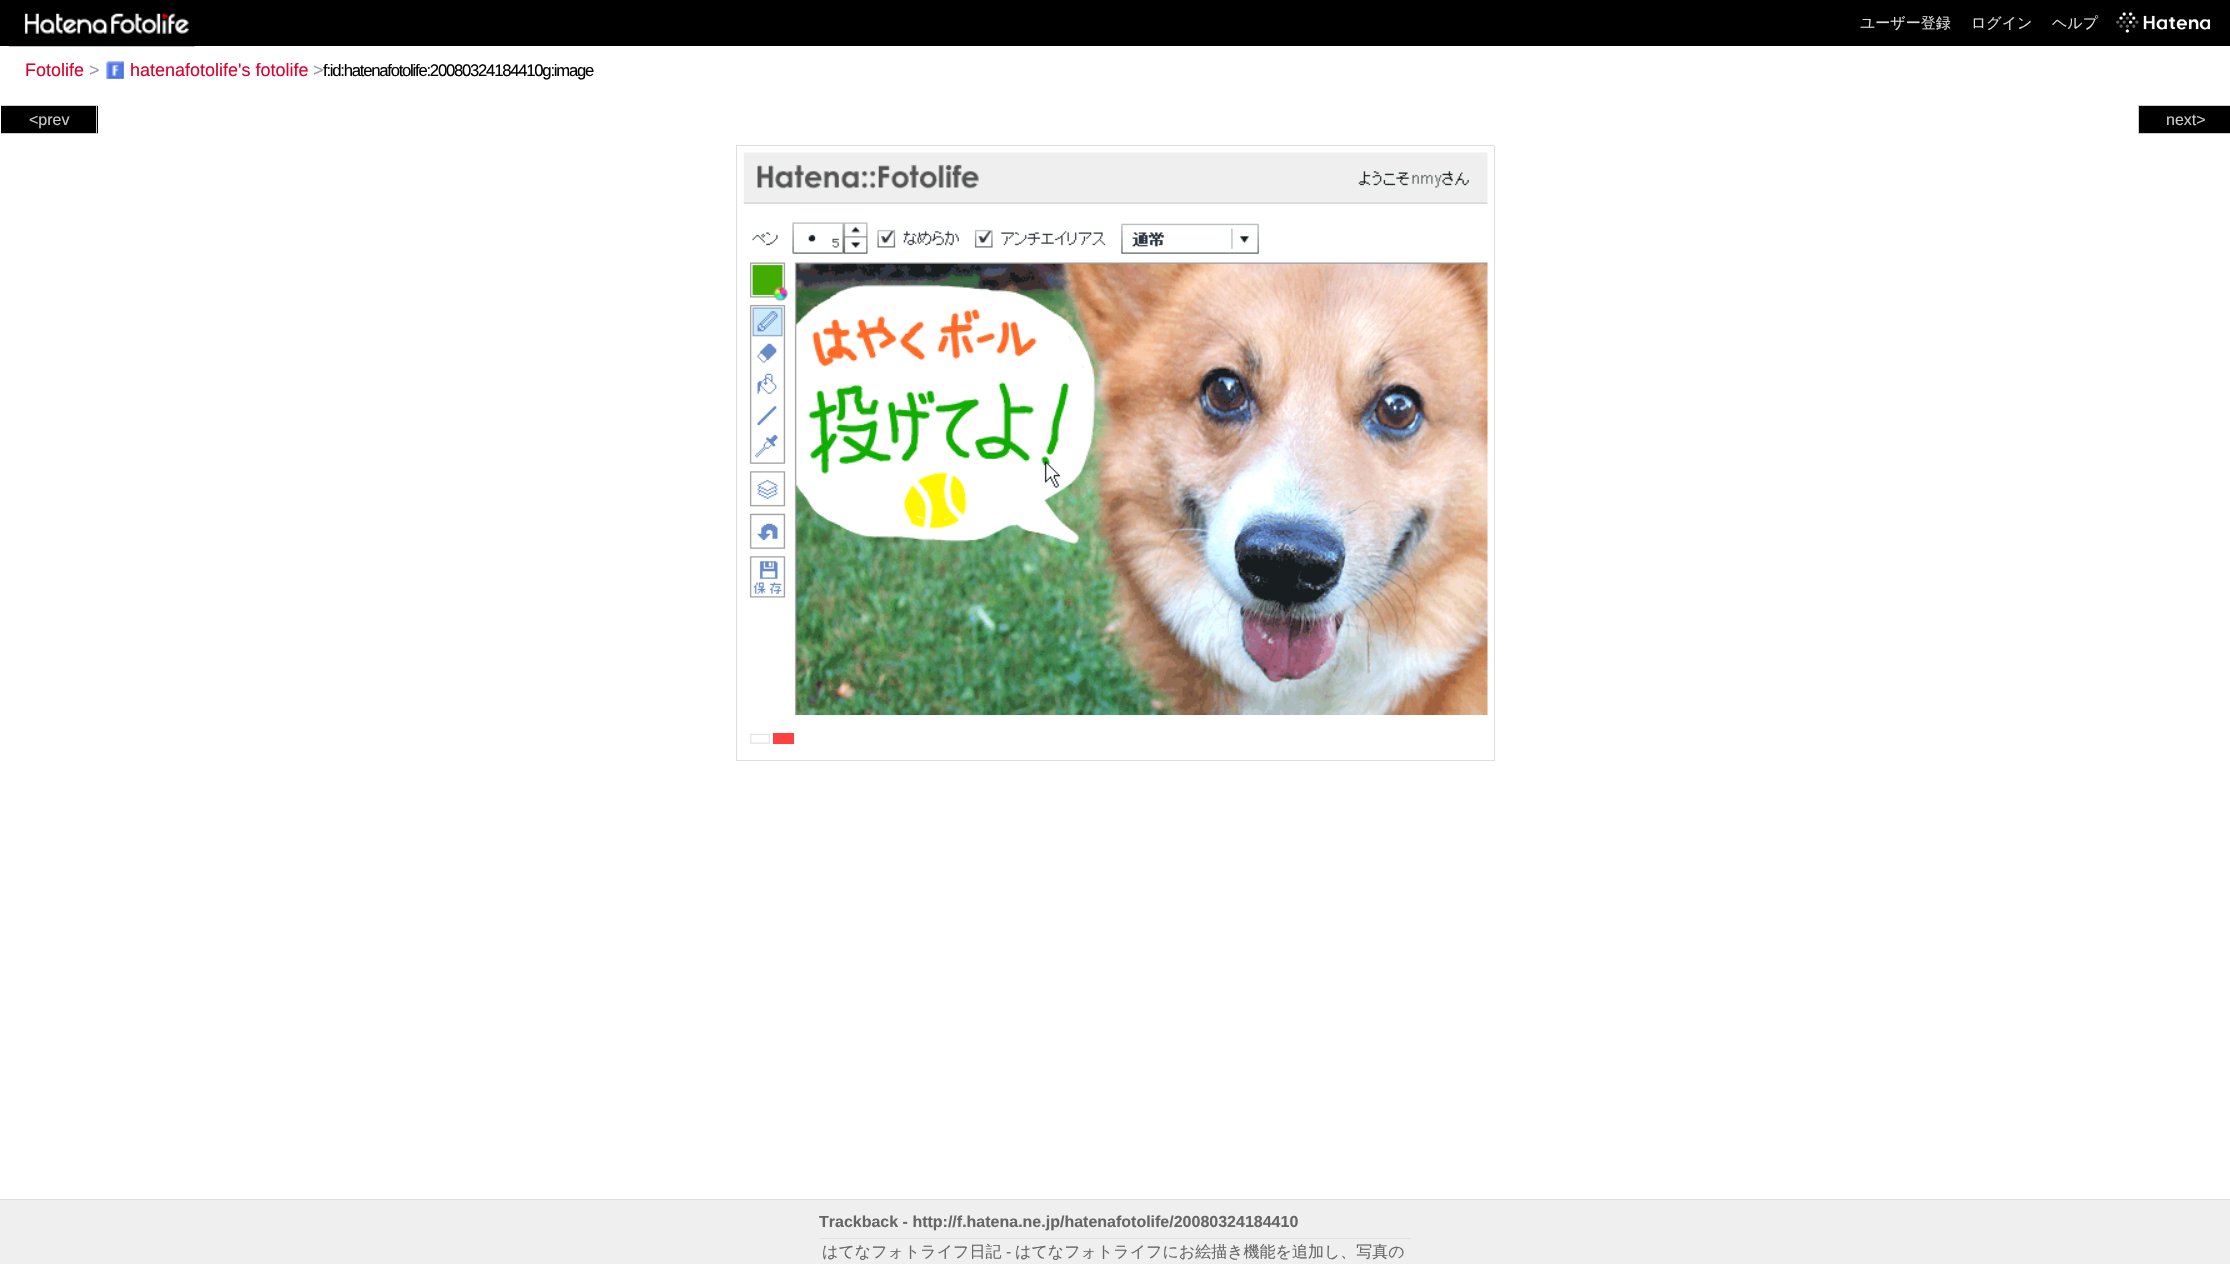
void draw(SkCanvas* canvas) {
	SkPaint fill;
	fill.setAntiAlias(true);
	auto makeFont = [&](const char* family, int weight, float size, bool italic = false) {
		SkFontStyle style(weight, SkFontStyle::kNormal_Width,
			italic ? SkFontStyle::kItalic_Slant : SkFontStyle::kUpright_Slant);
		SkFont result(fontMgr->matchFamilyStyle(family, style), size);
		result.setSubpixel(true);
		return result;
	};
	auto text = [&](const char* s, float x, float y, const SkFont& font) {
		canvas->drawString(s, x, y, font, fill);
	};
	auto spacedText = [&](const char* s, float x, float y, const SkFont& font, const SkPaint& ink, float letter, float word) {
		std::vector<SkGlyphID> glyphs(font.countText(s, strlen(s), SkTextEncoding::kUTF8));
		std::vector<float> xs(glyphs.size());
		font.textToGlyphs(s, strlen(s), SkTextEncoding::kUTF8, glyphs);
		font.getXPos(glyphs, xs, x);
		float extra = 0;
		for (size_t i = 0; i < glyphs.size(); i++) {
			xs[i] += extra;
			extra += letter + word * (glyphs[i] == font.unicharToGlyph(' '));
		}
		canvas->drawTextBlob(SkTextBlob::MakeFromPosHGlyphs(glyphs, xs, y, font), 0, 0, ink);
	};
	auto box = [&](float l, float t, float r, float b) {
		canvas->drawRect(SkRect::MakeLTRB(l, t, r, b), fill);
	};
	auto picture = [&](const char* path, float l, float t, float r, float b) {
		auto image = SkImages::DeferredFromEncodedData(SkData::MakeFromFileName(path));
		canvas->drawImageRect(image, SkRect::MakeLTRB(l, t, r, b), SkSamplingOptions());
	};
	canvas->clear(0xFFEFEFEF);
	fill.setColor(0xFF000000);
	box(0, 0, 2230, 46);
	fill.setColor(0xFFFFFFFF);
	box(0, 46, 2230, 1199);
	picture("image0.png", 8, 13, 112, 47);
	picture("image1.png", 111, 13, 195, 47);
	picture("image2.png", 2116, 12, 2210, 33);
	picture("image3.png", 106, 61, 124, 79);
	fill.setColor(0xFFDEDEDE);
	box(0, 1199, 2230, 1200);
	fill.setColor(0xFF000000);
	box(1, 106, 98, 133);
	fill.setColor(0xFFCCCCCC);
	box(1, 105, 98, 106);
	box(96, 105, 97, 134);
	box(1, 133, 98, 134);
	fill.setColor(0xFF000000);
	box(2139, 106, 2230, 133);
	fill.setColor(0xFFCCCCCC);
	box(2138, 105, 2230, 106);
	box(2138, 133, 2230, 134);
	box(2138, 105, 2139, 134);
	fill.setStyle(SkPaint::kStroke_Style);
	fill.setStrokeWidth(1);
	fill.setColor(0xFFDEDEDE);
	canvas->drawRect(SkRect::MakeLTRB(736.5f, 145.5f, 1494.5f, 760.5f), fill);
	picture("image4.png", 743, 152, 1488, 715);
	picture("image5.png", 750, 733, 770, 744);
	fill.setStyle(SkPaint::kFill_Style);
	fill.setColor(0xFFFF4040);
	box(773, 733, 794, 744);
	fill.setColor(0xFFE1E1E1);
	box(820, 1238, 1411, 1239);
	auto font1 = makeFont("WenQuanYi Zen Hei", 500, 15);
	fill.setColor(0xFFDDDDDD);
	text("ユーザー登録", 1860, 28, font1);
	text("ログイン", 1971, 28, font1);
	text("ヘルプ", 2052, 28, font1);
	auto font2 = makeFont("Liberation Sans", 400, 18);
	fill.setColor(0xFFDE002F);
	text("Fotolife", 25, 76, font2);
	fill.setColor(0xFF999999);
	text(">", 89, 76, font2);
	fill.setColor(0xFFDE002F);
	text("hatenafotolife's fotolife", 130, 76, font2);
	fill.setColor(0xFF999999);
	text(">", 313, 76, font2);
	auto font3 = makeFont("Liberation Sans", 400, 16.7f);
	fill.setColor(0xFF000000);
	spacedText("f:id:hatenafotolife:20080324184410g:image", 323, 76, font3, fill, -1.25f, 0);
	auto font4 = makeFont("Liberation Sans", 400, 16);
	fill.setColor(0xFFCCCCCC);
	text("<prev", 29, 125, font4);
	text("next>", 2166, 125, font4);
	auto font5 = makeFont("Liberation Sans", 700, 16);
	fill.setColor(0xFF666666);
	text("Trackback - http://f.hatena.ne.jp/hatenafotolife/20080324184410", 819, 1227, font5);
	auto font6 = makeFont("WenQuanYi Zen Hei", 500, 16);
	text("はてなフォトライフ日記", 822, 1257, font6);
	text("-", 1006, 1257, font4);
	text("はてなフォトライフにお絵描き機能を追加し、写真の", 1015, 1257, font6);
}
